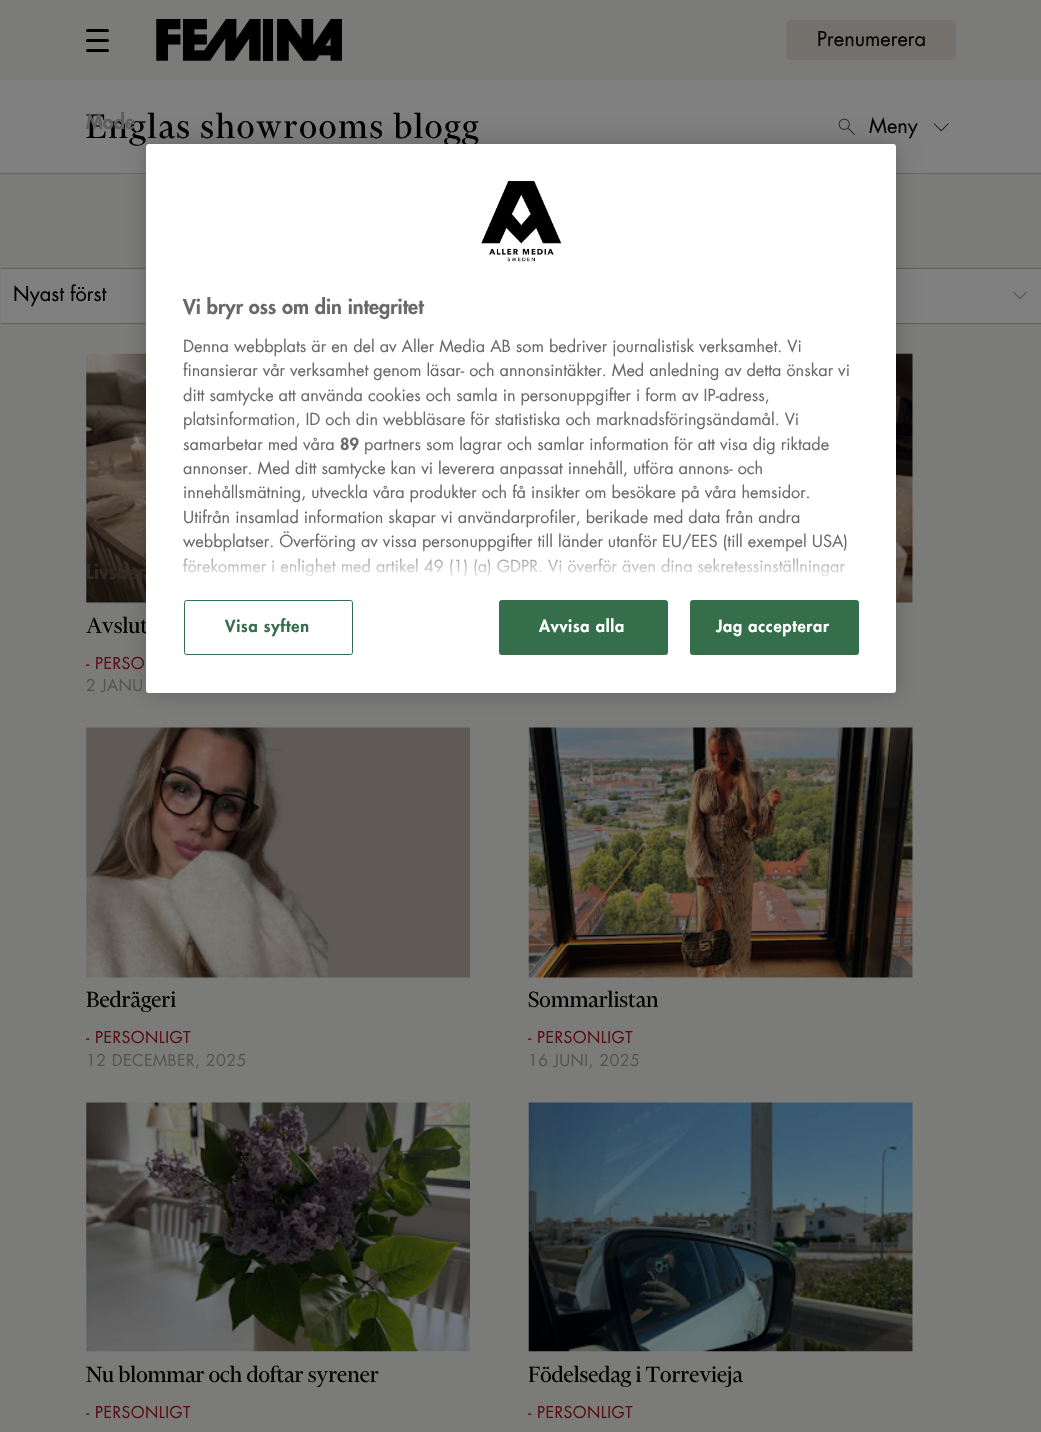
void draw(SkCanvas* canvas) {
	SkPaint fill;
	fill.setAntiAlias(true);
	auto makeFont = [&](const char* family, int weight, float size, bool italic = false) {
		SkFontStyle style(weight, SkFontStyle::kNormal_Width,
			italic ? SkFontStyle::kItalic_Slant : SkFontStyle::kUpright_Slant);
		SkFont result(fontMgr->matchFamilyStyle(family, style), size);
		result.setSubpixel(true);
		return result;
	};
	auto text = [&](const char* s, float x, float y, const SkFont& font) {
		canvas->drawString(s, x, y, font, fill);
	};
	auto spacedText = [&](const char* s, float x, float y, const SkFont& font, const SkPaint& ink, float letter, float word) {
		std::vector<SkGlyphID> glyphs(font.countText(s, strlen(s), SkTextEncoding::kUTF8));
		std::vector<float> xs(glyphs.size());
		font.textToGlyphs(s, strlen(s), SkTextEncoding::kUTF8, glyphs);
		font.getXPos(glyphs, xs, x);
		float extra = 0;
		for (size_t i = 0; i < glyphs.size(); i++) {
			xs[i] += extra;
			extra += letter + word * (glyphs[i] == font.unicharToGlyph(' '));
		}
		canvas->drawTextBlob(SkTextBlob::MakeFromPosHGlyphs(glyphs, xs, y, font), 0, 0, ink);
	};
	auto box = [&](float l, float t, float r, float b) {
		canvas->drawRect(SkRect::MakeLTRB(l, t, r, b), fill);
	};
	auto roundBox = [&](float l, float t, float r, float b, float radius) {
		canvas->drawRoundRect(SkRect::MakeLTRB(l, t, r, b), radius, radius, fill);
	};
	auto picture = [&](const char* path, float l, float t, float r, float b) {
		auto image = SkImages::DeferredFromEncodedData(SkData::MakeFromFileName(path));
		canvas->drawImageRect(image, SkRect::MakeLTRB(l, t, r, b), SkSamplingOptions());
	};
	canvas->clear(0xFF7B7B7A);
	fill.setColor(0xFF000000);
	roundBox(86, 29, 109, 32, 1.5f);
	roundBox(86, 39, 109, 42, 1.5f);
	roundBox(86, 49, 109, 52, 1.5f);
	picture("image0.png", 156, 19, 342, 61);
	fill.setColor(0xFF74706C);
	roundBox(786, 20, 956, 60, 6);
	fill.setColor(0xFF808080);
	box(0, 80, 1041, 173);
	fill.setColor(0xFF666666);
	box(0, 173, 1041, 174);
	picture("image1.png", 838, 118, 855, 135);
	picture("image2.png", 933, 123, 949, 132);
	fill.setColor(0xFF808080);
	box(1, 269, 146, 323);
	fill.setColor(0xFF5F5F5F);
	box(1, 268, 146, 269);
	box(1, 323, 146, 324);
	fill.setColor(0xFF808080);
	box(896, 269, 1041, 323);
	fill.setColor(0xFF5F5F5F);
	box(896, 268, 1041, 269);
	box(896, 323, 1041, 324);
	fill.setColor(0xFF5D5D5D);
	canvas->drawPath(SkPathBuilder().moveTo(1019, 298.5f).lineTo(1026, 291.5f).lineTo(1027, 292.5f).lineTo(1020, 299.5f).close().detach(), fill);
	canvas->drawPath(SkPathBuilder().moveTo(1013, 292.5f).lineTo(1014, 291.5f).lineTo(1021, 298.5f).lineTo(1020, 299.5f).close().detach(), fill);
	picture("image3.png", 896, 353, 913, 603);
	picture("image4.png", 86, 353, 146, 603);
	picture("image5.png", 86, 727, 470, 978);
	picture("image6.png", 528, 727, 913, 978);
	picture("image7.png", 86, 1102, 470, 1352);
	picture("image8.png", 528, 1102, 913, 1352);
	fill.setColor(0x33000000);
	fill.setMaskFilter(SkMaskFilter::MakeBlur(kNormal_SkBlurStyle, 11));
	canvas->drawRoundRect(SkRect::MakeLTRB(146, 144, 896, 693), 3, 3, fill);
	fill.setMaskFilter(nullptr);
	auto font1 = makeFont("Futura", 400, 20);
	fill.setColor(0xFF000000);
	text("Prenumerera", 817, 46, font1);
	auto font2 = makeFont("Futura", 900, 20);
	fill.setColor(0xFF332820);
	text("Livsber", 86, 579, font2);
	auto font3 = makeFont("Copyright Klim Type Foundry", 400, 38.75f);
	fill.setColor(0xFF000000);
	spacedText("Englas showrooms blogg", 86, 138, font3, fill, 1.9f, 0);
	fill.setColor(0xFF5E5E5E);
	text("Mode", 86, 129, font2);
	fill.setColor(0xFF000000);
	text("Meny", 869, 133, font1);
	text("Nyast först", 13, 301, font1);
	auto font4 = makeFont("Copyright Klim Type Foundry", 400, 25);
	text("Avslut", 86, 633, font4);
	auto font5 = makeFont("Futura", 400, 16);
	fill.setColor(0xFF570D11);
	spacedText("- PERSO", 86, 669, font5, fill, 0.4f, 0);
	fill.setColor(0xFF545454);
	spacedText("2 JANU", 86, 691, font5, fill, 0.4f, 0);
	fill.setColor(0xFF000000);
	text("Bedrägeri", 86, 1007, font4);
	fill.setColor(0xFF570D11);
	spacedText("- PERSONLIGT", 86, 1043, font5, fill, 0.4f, 0);
	fill.setColor(0xFF545454);
	spacedText("12 DECEMBER, 2025", 86, 1066, font5, fill, 0.4f, 0);
	fill.setColor(0xFF000000);
	text("Sommarlistan", 528, 1007, font4);
	fill.setColor(0xFF570D11);
	spacedText("- PERSONLIGT", 528, 1043, font5, fill, 0.4f, 0);
	fill.setColor(0xFF545454);
	spacedText("16 JUNI, 2025", 528, 1066, font5, fill, 0.4f, 0);
	fill.setColor(0xFF000000);
	text("Nu blommar och doftar syrener", 86, 1382, font4);
	fill.setColor(0xFF570D11);
	spacedText("- PERSONLIGT", 86, 1418, font5, fill, 0.4f, 0);
	canvas->save();
	canvas->clipRect(SkRect::MakeLTRB(529, 1359, 743, 1389));
	fill.setColor(0xFF000000);
	text("Födelsedag i Torrevieja", 528, 1382, font4);
	canvas->restore();
	fill.setColor(0xFF570D11);
	spacedText("- PERSONLIGT", 528, 1418, font5, fill, 0.4f, 0);
	fill.setColor(0xFFFFFFFF);
	roundBox(146, 144, 896, 693, 3);
	picture("image9.png", 481, 181, 562, 262);
	fill.setColor(0xFF696969);
	text("Vi bryr oss om din integritet", 183, 314, font2);
	auto font6 = makeFont("Futura", 400, 16.25f);
	text("Denna webbplats är en del av Aller Media AB som bedriver journalistisk verksamhet. Vi", 183, 352, font6);
	text("finansierar vår verksamhet genom läsar- och annonsintäkter. Med anledning av detta önskar vi", 183, 376, font6);
	text("ditt samtycke att använda cookies och samla in personuppgifter i form av IP-adress,", 183, 401, font6);
	text("platsinformation, ID och din webbläsare för statistiska och marknadsföringsändamål. Vi", 183, 425, font6);
	text("samarbetar med våra", 183, 450, font6);
	auto font7 = makeFont("Futura", 900, 16.25f);
	text("89", 340, 450, font7);
	text("partners som lagrar och samlar information för att visa dig riktade", 364, 450, font6);
	text("annonser. Med ditt samtycke kan vi leverera anpassat innehåll, utföra annons- och", 183, 474, font6);
	text("innehållsmätning, utveckla våra produkter och få insikter om besökare på våra hemsidor.", 183, 498, font6);
	text("Utifrån insamlad information skapar vi användarprofiler, berikade med data från andra", 183, 523, font6);
	text("webbplatser. Överföring av vissa personuppgifter till länder utanför EU/EES (till exempel USA)", 183, 547, font6);
	text("förekommer i enlighet med artikel 49 (1) (a) GDPR. Vi överför även dina sekretessinställningar", 183, 572, font6);
	{
		const SkColor colors[] = {0x00FFFFFF, 0xFFFFFFFF};
		const float stops[] = {0, 1};
		const SkPoint ends[] = {{546, 545}, {546, 582}};
		fill.setShader(SkGradientShader::MakeLinear(ends, colors, stops, 2, SkTileMode::kClamp));
		fill.setAlpha(255);
	}
	box(184, 546, 846, 577);
	fill.setStyle(SkPaint::kStroke_Style);
	fill.setStrokeWidth(1);
	fill.setShader(nullptr);
	fill.setColor(0xFF346E4A);
	canvas->drawRoundRect(SkRect::MakeLTRB(184.5f, 600.5f, 352.5f, 654.5f), 2, 2, fill);
	fill.setStyle(SkPaint::kFill_Style);
	spacedText("Visa syften", 225, 632, font7, fill, 0.75f, 0);
	canvas->drawRoundRect(SkRect::MakeLTRB(499.5f, 600.5f, 667.5f, 654.5f), 2, 2, fill);
	fill.setStyle(SkPaint::kStroke_Style);
	canvas->drawRoundRect(SkRect::MakeLTRB(499.5f, 600.5f, 667.5f, 654.5f), 2, 2, fill);
	fill.setStyle(SkPaint::kFill_Style);
	fill.setColor(0xFFFFFFFF);
	spacedText("Avvisa alla", 539, 632, font7, fill, 0.75f, 0);
	fill.setColor(0xFF346E4A);
	canvas->drawRoundRect(SkRect::MakeLTRB(690.5f, 600.5f, 858.5f, 654.5f), 2, 2, fill);
	fill.setStyle(SkPaint::kStroke_Style);
	canvas->drawRoundRect(SkRect::MakeLTRB(690.5f, 600.5f, 858.5f, 654.5f), 2, 2, fill);
	fill.setStyle(SkPaint::kFill_Style);
	fill.setColor(0xFFFFFFFF);
	spacedText("Jag accepterar", 716, 632, font7, fill, 0.75f, 0);
}
